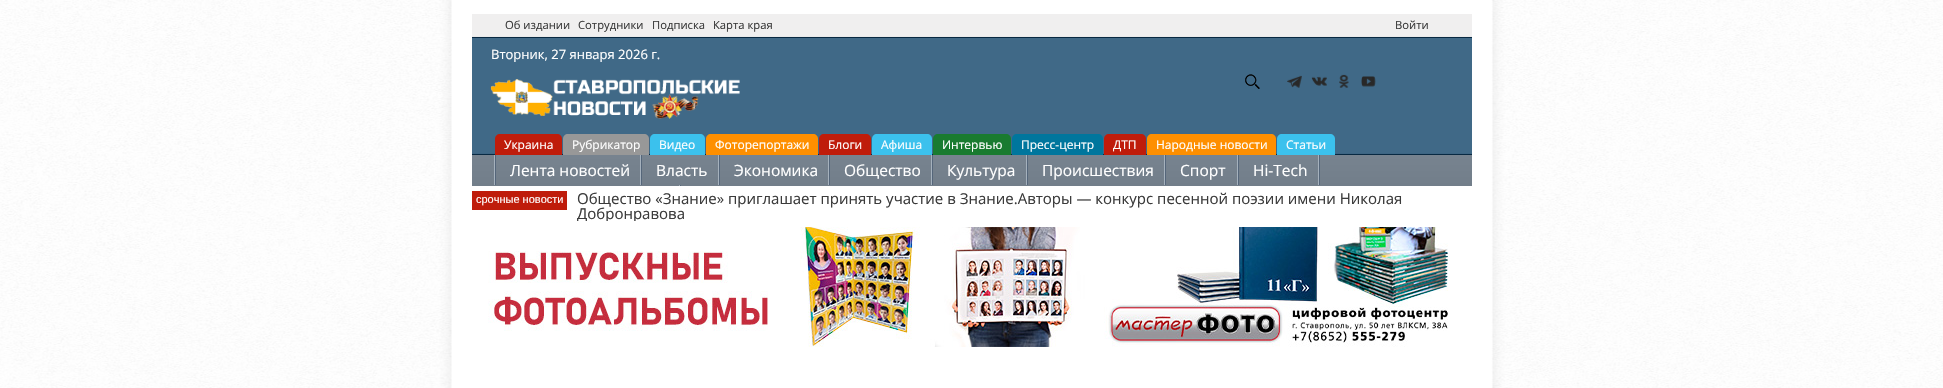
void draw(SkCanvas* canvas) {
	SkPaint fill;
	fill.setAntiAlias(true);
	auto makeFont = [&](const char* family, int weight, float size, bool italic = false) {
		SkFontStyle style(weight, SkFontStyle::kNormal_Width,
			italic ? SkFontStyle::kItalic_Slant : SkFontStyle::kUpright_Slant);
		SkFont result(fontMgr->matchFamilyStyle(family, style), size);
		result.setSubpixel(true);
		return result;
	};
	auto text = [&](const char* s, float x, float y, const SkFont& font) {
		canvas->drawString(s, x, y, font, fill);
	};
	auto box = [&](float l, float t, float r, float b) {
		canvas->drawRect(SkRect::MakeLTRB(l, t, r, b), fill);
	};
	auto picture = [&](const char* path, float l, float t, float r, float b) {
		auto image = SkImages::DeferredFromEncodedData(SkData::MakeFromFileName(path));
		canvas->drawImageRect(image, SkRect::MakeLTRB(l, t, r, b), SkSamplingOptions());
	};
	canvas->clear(0xFFFFFFFF);
	picture("image0.png", 0, 0, 1943, 388);
	fill.setColor(0xFFF0EFEF);
	box(472, 14, 1472, 36);
	fill.setColor(0xFFEAEAEA);
	box(472, 36, 1472, 37);
	fill.setColor(0xFF406987);
	box(472, 38, 1472, 153);
	fill.setColor(0xFF3D6583);
	box(472, 153, 1472, 154);
	fill.setColor(0xFF082942);
	box(472, 37, 1472, 38);
	box(472, 154, 1472, 155);
	picture("image1.png", 490, 79, 740, 119);
	picture("image2.png", 1245, 74, 1260, 89);
	picture("image3.png", 1287, 75, 1302, 88);
	picture("image4.png", 1311, 76, 1327, 86);
	picture("image5.png", 1339, 74, 1349, 88);
	picture("image6.png", 1361, 76, 1376, 87);
	fill.setColor(0xFFBF1C0B);
	canvas->drawPath(SkPathBuilder().moveTo(500, 134).lineTo(557, 134).cubicTo(560, 134, 562, 136, 562, 139).lineTo(562, 155).lineTo(495, 155).lineTo(495, 139).cubicTo(495, 136, 497, 134, 500, 134).close().detach(), fill);
	fill.setColor(0xFF989898);
	canvas->drawPath(SkPathBuilder().moveTo(568, 134).lineTo(644, 134).cubicTo(647, 134, 649, 136, 649, 139).lineTo(649, 155).lineTo(563, 155).lineTo(563, 139).cubicTo(563, 136, 565, 134, 568, 134).close().detach(), fill);
	fill.setColor(0xFF3BC1ED);
	canvas->drawPath(SkPathBuilder().moveTo(655, 134).lineTo(700, 134).cubicTo(703, 134, 705, 136, 705, 139).lineTo(705, 155).lineTo(650, 155).lineTo(650, 139).cubicTo(650, 136, 652, 134, 655, 134).close().detach(), fill);
	fill.setColor(0xFFFE8F00);
	canvas->drawPath(SkPathBuilder().moveTo(711, 134).lineTo(813, 134).cubicTo(816, 134, 818, 136, 818, 139).lineTo(818, 155).lineTo(706, 155).lineTo(706, 139).cubicTo(706, 136, 708, 134, 711, 134).close().detach(), fill);
	fill.setColor(0xFFBF1C0B);
	canvas->drawPath(SkPathBuilder().moveTo(824, 134).lineTo(866, 134).cubicTo(869, 134, 871, 136, 871, 139).lineTo(871, 155).lineTo(819, 155).lineTo(819, 139).cubicTo(819, 136, 821, 134, 824, 134).close().detach(), fill);
	fill.setColor(0xFF3BC1ED);
	canvas->drawPath(SkPathBuilder().moveTo(877, 134).lineTo(927, 134).cubicTo(930, 134, 932, 136, 932, 139).lineTo(932, 155).lineTo(872, 155).lineTo(872, 139).cubicTo(872, 136, 874, 134, 877, 134).close().detach(), fill);
	fill.setColor(0xFF197B30);
	canvas->drawPath(SkPathBuilder().moveTo(938, 134).lineTo(1006, 134).cubicTo(1009, 134, 1011, 136, 1011, 139).lineTo(1011, 155).lineTo(933, 155).lineTo(933, 139).cubicTo(933, 136, 935, 134, 938, 134).close().detach(), fill);
	fill.setColor(0xFF00769D);
	canvas->drawPath(SkPathBuilder().moveTo(1017, 134).lineTo(1098, 134).cubicTo(1101, 134, 1103, 136, 1103, 139).lineTo(1103, 155).lineTo(1012, 155).lineTo(1012, 139).cubicTo(1012, 136, 1014, 134, 1017, 134).close().detach(), fill);
	fill.setColor(0xFFBF1C0B);
	canvas->drawPath(SkPathBuilder().moveTo(1109, 134).lineTo(1141, 134).cubicTo(1144, 134, 1146, 136, 1146, 139).lineTo(1146, 155).lineTo(1104, 155).lineTo(1104, 139).cubicTo(1104, 136, 1106, 134, 1109, 134).close().detach(), fill);
	fill.setColor(0xFFFE8F00);
	canvas->drawPath(SkPathBuilder().moveTo(1152, 134).lineTo(1271, 134).cubicTo(1274, 134, 1276, 136, 1276, 139).lineTo(1276, 155).lineTo(1147, 155).lineTo(1147, 139).cubicTo(1147, 136, 1149, 134, 1152, 134).close().detach(), fill);
	fill.setColor(0xFF3BC1ED);
	canvas->drawPath(SkPathBuilder().moveTo(1282, 134).lineTo(1330, 134).cubicTo(1333, 134, 1335, 136, 1335, 139).lineTo(1335, 155).lineTo(1277, 155).lineTo(1277, 139).cubicTo(1277, 136, 1279, 134, 1282, 134).close().detach(), fill);
	{
		const SkColor colors[] = {0xFF77838F, 0xFF727E8A};
		const float stops[] = {0.05f, 1};
		const SkPoint ends[] = {{472, 155}, {472, 186}};
		fill.setShader(SkGradientShader::MakeLinear(ends, colors, stops, 2, SkTileMode::kClamp));
		fill.setAlpha(255);
	}
	box(472, 155, 1472, 186);
	fill.setShader(nullptr);
	fill.setColor(0xFF55667A);
	box(641, 155, 642, 185);
	fill.setColor(0xFFA5B1BD);
	box(494, 155, 495, 185);
	box(640, 155, 641, 185);
	fill.setColor(0xFF55667A);
	box(495, 155, 496, 185);
	box(719, 155, 720, 185);
	fill.setColor(0xFFA5B1BD);
	box(718, 155, 719, 185);
	fill.setColor(0xFF55667A);
	box(829, 155, 830, 185);
	fill.setColor(0xFFA5B1BD);
	box(828, 155, 829, 185);
	fill.setColor(0xFF55667A);
	box(932, 155, 933, 185);
	fill.setColor(0xFFA5B1BD);
	box(931, 155, 932, 185);
	fill.setColor(0xFF55667A);
	box(1027, 155, 1028, 185);
	fill.setColor(0xFFA5B1BD);
	box(1026, 155, 1027, 185);
	fill.setColor(0xFF55667A);
	box(1165, 155, 1166, 185);
	fill.setColor(0xFFA5B1BD);
	box(1164, 155, 1165, 185);
	fill.setColor(0xFF55667A);
	box(1238, 155, 1239, 185);
	fill.setColor(0xFFA5B1BD);
	box(1237, 155, 1238, 185);
	fill.setColor(0xFF55667A);
	box(1319, 155, 1320, 185);
	fill.setColor(0xFFA5B1BD);
	box(1318, 155, 1319, 185);
	fill.setColor(0xFF55667A);
	box(680, 185, 681, 186);
	fill.setColor(0xFFA5B1BD);
	box(679, 185, 680, 186);
	fill.setColor(0xFFBF1C0B);
	box(472, 191, 567, 210);
	picture("image7.png", 488, 227, 1448, 347);
	auto font1 = makeFont("Open Sans", 400, 11.25f);
	fill.setColor(0xFF3B3B3B);
	text("Об издании", 505, 29, font1);
	text("Сотрудники", 578, 29, font1);
	text("Подписка", 652, 29, font1);
	text("Карта края", 713, 29, font1);
	text("Войти", 1395, 29, font1);
	auto font2 = makeFont("Open Sans", 400, 13);
	fill.setColor(0xFFFFFFFF);
	text("Вторник, 27 января 2026 г.", 491, 59, font2);
	auto font3 = makeFont("Open Sans", 400, 12);
	text("Украина", 504, 149, font3);
	text("Рубрикатор", 572, 149, font3);
	text("Видео", 659, 149, font3);
	text("Фоторепортажи", 715, 149, font3);
	text("Блоги", 828, 149, font3);
	text("Афиша", 881, 149, font3);
	text("Интервью", 942, 149, font3);
	text("Пресс-центр", 1021, 149, font3);
	text("ДТП", 1113, 149, font3);
	text("Народные новости", 1156, 149, font3);
	text("Статьи", 1286, 149, font3);
	auto font4 = makeFont("Open Sans", 400, 15.5f);
	text("Лента новостей", 510, 176, font4);
	text("Власть", 656, 176, font4);
	text("Экономика", 734, 176, font4);
	text("Общество", 844, 176, font4);
	text("Культура", 947, 176, font4);
	text("Происшествия", 1042, 176, font4);
	text("Спорт", 1180, 176, font4);
	text("Hi-Tech", 1253, 176, font4);
	auto font5 = makeFont("Liberation Sans", 400, 11);
	text("cрочные новости", 476, 203, font5);
	auto font6 = makeFont("Open Sans", 400, 15);
	fill.setColor(0xFF3B3B3B);
	text("Общество «Знание» приглашает принять участие в Знание.Авторы — конкурс песенной поэзии имени Николая", 577, 204, font6);
	canvas->save();
	canvas->clipRect(SkRect::MakeLTRB(577, 191, 1427, 221));
	text("Добронравова", 577, 219, font6);
	canvas->restore();
}
